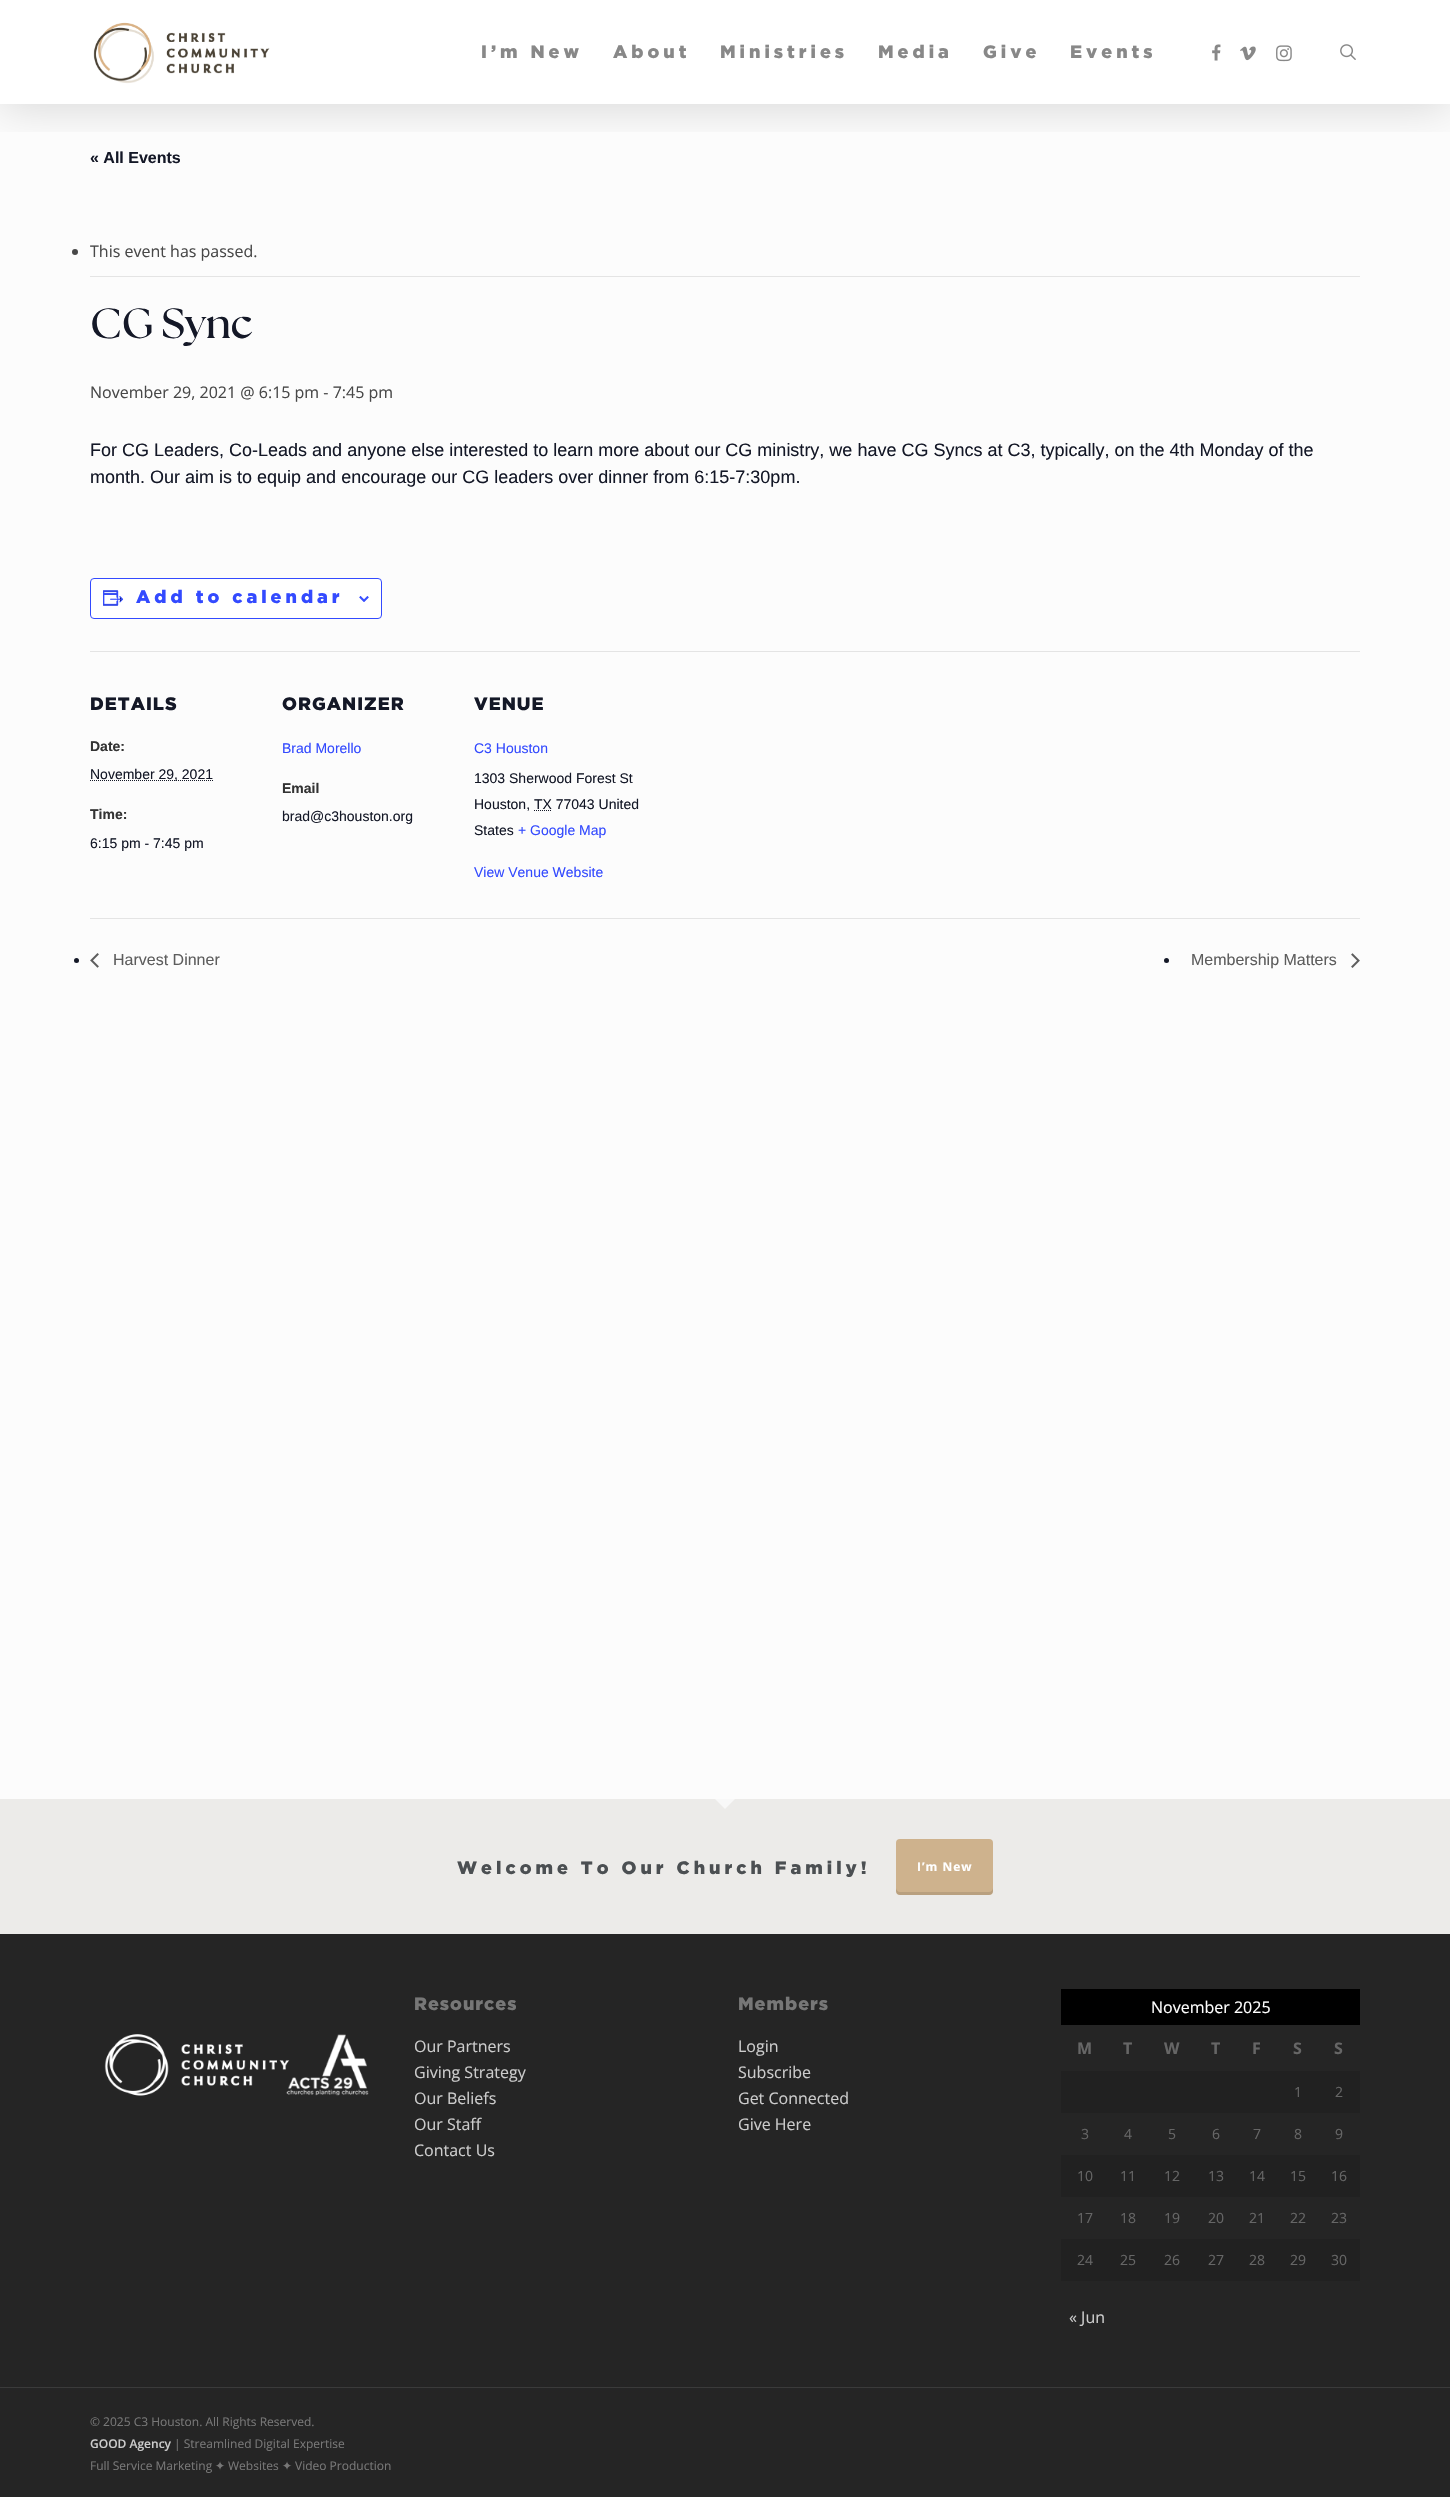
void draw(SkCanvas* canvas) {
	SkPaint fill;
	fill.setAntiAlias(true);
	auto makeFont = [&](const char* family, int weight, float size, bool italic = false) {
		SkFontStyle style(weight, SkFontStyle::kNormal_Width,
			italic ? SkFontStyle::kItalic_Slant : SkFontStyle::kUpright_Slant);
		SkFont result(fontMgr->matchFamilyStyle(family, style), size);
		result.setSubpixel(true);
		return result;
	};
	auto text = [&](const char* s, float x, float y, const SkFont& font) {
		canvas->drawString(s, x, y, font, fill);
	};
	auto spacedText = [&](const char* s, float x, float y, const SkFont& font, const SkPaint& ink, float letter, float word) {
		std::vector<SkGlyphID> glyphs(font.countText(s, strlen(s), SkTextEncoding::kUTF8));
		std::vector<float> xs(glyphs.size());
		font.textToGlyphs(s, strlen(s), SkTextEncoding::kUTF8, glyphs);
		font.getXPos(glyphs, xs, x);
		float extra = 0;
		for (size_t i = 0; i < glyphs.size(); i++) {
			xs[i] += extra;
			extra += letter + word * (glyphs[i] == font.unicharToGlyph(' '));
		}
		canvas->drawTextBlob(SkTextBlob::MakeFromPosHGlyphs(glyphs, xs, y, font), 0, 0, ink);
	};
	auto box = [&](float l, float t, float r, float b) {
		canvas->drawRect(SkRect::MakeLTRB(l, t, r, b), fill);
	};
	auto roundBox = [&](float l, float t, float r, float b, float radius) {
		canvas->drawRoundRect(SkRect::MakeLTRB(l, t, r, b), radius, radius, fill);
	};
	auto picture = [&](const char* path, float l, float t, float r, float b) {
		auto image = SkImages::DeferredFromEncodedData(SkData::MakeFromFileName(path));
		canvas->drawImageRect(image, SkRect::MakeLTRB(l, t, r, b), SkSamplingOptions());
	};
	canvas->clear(0xFFFCFCFC);
	fill.setColor(0xFFFFFFFF);
	box(0, 0, 1450, 104);
	canvas->save();
	canvas->clipRect(SkRect::MakeLTRB(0, 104, 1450, 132));
	fill.setColor(0x26000000);
	fill.setMaskFilter(SkMaskFilter::MakeBlur(kNormal_SkBlurStyle, 22.5f));
	canvas->drawRect(SkRect::MakeLTRB(0, 3, 1450, 107), fill);
	fill.setMaskFilter(nullptr);
	canvas->restore();
	picture("image0.png", 93, 22, 270, 84);
	picture("image1.png", 1212, 44, 1221, 61);
	picture("image2.png", 1240, 46, 1256, 61);
	picture("image3.png", 1276, 45, 1292, 62);
	picture("image4.png", 1340, 44, 1356, 60);
	fill.setColor(0xFFE4E4E4);
	box(90, 276, 1360, 277);
	fill.setColor(0xFF484848);
	canvas->drawCircle(75, 252, 3, fill);
	fill.setColor(0xFFFFFFFF);
	canvas->drawRoundRect(SkRect::MakeLTRB(90.5f, 578.5f, 381.5f, 618.5f), 3.5f, 3.5f, fill);
	fill.setStyle(SkPaint::kStroke_Style);
	fill.setStrokeWidth(1);
	fill.setColor(0xFF334AFF);
	canvas->drawRoundRect(SkRect::MakeLTRB(90.5f, 578.5f, 381.5f, 618.5f), 3.5f, 3.5f, fill);
	picture("image5.png", 103, 590, 124, 606);
	picture("image6.png", 359, 596, 369, 602);
	fill.setStyle(SkPaint::kFill_Style);
	fill.setColor(0xFFE4E4E4);
	box(90, 651, 1360, 652);
	fill.setStyle(SkPaint::kStroke_Style);
	fill.setColor(0xFF141827);
	fill.setPathEffect(SkDashPathEffect::Make({{1, 1}}, 0));
	canvas->drawPath(SkPathBuilder().moveTo(90, 780.5f).lineTo(213, 780.5f).detach(), fill);
	fill.setPathEffect(nullptr);
	fill.setPathEffect(SkDashPathEffect::Make({{1, 1}}, 0));
	canvas->drawPath(SkPathBuilder().moveTo(534, 810.5f).lineTo(552, 810.5f).detach(), fill);
	fill.setPathEffect(nullptr);
	fill.setStyle(SkPaint::kFill_Style);
	fill.setColor(0xFFE4E4E4);
	box(90, 918, 1360, 919);
	fill.setColor(0xFF141827);
	canvas->drawCircle(76.5f, 960.5f, 2.5f, fill);
	picture("image7.png", 90, 953, 99, 968);
	canvas->drawCircle(1166.5f, 960.5f, 2.5f, fill);
	picture("image8.png", 1351, 953, 1360, 968);
	fill.setColor(0xFF252525);
	box(0, 1934, 1450, 2497);
	fill.setColor(0xFFECEBE9);
	box(0, 1799, 1450, 1934);
	fill.setColor(0xFFF8F8F8);
	canvas->drawPath(SkPathBuilder().moveTo(715, 1799).lineTo(735, 1799).lineTo(725, 1809).close().detach(), fill);
	fill.setColor(0xFFCEB28D);
	roundBox(896, 1839, 993, 1895, 4);
	fill.setColor(0x1A000000);
	canvas->drawPath(SkPathBuilder().moveTo(896, 1888).lineTo(896, 1891).cubicTo(896, 1893, 898, 1895, 900, 1895).lineTo(989, 1895).cubicTo(991, 1895, 993, 1893, 993, 1891).lineTo(993, 1888).cubicTo(993, 1890, 991, 1892, 989, 1892).lineTo(900, 1892).cubicTo(898, 1892, 896, 1890, 896, 1888).close().detach(), fill);
	picture("image9.png", 104, 2034, 369, 2096);
	fill.setColor(0xFF000000);
	box(1061, 1989, 1360, 2025);
	fill.setColor(0xFF212121);
	box(1061, 2071, 1360, 2113);
	box(1061, 2155, 1360, 2197);
	box(1061, 2239, 1360, 2281);
	fill.setColor(0xFF3B3B3B);
	box(0, 2387, 1450, 2388);
	auto font1 = makeFont("Gotham", 900, 18);
	fill.setColor(0xFF888888);
	spacedText("I’m New", 481, 58, font1, fill, 4, 0);
	spacedText("About", 613, 58, font1, fill, 4, 0);
	spacedText("Ministries", 720, 58, font1, fill, 4, 0);
	spacedText("Media", 878, 58, font1, fill, 4, 0);
	spacedText("Give", 983, 58, font1, fill, 4, 0);
	spacedText("Events", 1070, 58, font1, fill, 4, 0);
	auto font2 = makeFont("Liberation Sans", 700, 16);
	fill.setColor(0xFF141827);
	text("« All Events", 90, 163, font2);
	auto font3 = makeFont("Open Sans", 400, 16);
	fill.setColor(0xFF484848);
	text("This event has passed.", 90, 257, font3);
	auto font4 = makeFont("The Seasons", 700, 42);
	fill.setColor(0xFF141827);
	text("CG Sync", 90, 338, font4);
	fill.setColor(0xFF484848);
	text("November 29, 2021 @ 6:15 pm - 7:45 pm", 90, 398, font3);
	auto font5 = makeFont("Liberation Sans", 400, 18);
	fill.setColor(0xFF141827);
	text("For CG Leaders, Co-Leads and anyone else interested to learn more about our CG ministry, we have CG Syncs at C3, typically, on the 4th Monday of the", 90, 456, font5);
	text("month. Our aim is to equip and encourage our CG leaders over dinner from 6:15-7:30pm.", 90, 483, font5);
	fill.setColor(0xFF334AFF);
	spacedText("Add to calendar", 136, 603, font1, fill, 4, 0);
	fill.setColor(0xFF141827);
	spacedText("DETAILS", 90, 710, font1, fill, 1, 0);
	auto font6 = makeFont("Liberation Sans", 700, 14);
	fill.setColor(0xFF333333);
	text("Date:", 90, 751, font6);
	auto font7 = makeFont("Liberation Sans", 400, 14);
	fill.setColor(0xFF141827);
	text("November 29, 2021", 90, 779, font7);
	fill.setColor(0xFF333333);
	text("Time:", 90, 819, font6);
	fill.setColor(0xFF141827);
	text("6:15 pm - 7:45 pm", 90, 848, font7);
	spacedText("ORGANIZER", 282, 710, font1, fill, 1, 0);
	fill.setColor(0xFF334AFF);
	text("Brad Morello", 282, 753, font7);
	fill.setColor(0xFF333333);
	text("Email", 282, 793, font6);
	fill.setColor(0xFF141827);
	text("brad@c3houston.org", 282, 821, font7);
	spacedText("VENUE", 474, 710, font1, fill, 1, 0);
	fill.setColor(0xFF334AFF);
	text("C3 Houston", 474, 753, font7);
	fill.setColor(0xFF141827);
	text("1303 Sherwood Forest St", 474, 783, font7);
	text("Houston, TX 77043 United", 474, 809, font7);
	text("States", 474, 835, font7);
	fill.setColor(0xFF334AFF);
	text("+ Google Map", 518, 835, font7);
	text("View Venue Website", 474, 877, font7);
	auto font8 = makeFont("Liberation Sans", 400, 16);
	fill.setColor(0xFF5D5D5D);
	text("Harvest Dinner", 113, 965, font8);
	text("Membership Matters", 1191, 965, font8);
	fill.setColor(0xFF4B4F52);
	spacedText("Welcome To Our Church Family!", 457, 1874, font1, fill, 4, 0);
	auto font9 = makeFont("Open Sans", 700, 12);
	fill.setColor(0xFFFFFFFF);
	spacedText("I’m New", 917, 1871, font9, fill, 1, 0);
	fill.setColor(0xFF777777);
	spacedText("Resources", 414, 2010, font1, fill, 1, 0);
	fill.setColor(0xFFCCCCCC);
	text("Our Partners", 414, 2052, font3);
	text("Giving Strategy", 414, 2078, font3);
	text("Our Beliefs", 414, 2104, font3);
	text("Our Staff", 414, 2130, font3);
	text("Contact Us", 414, 2156, font3);
	fill.setColor(0xFF777777);
	spacedText("Members", 738, 2010, font1, fill, 1, 0);
	fill.setColor(0xFFCCCCCC);
	text("Login", 738, 2052, font3);
	text("Subscribe", 738, 2078, font3);
	text("Get Connected", 738, 2104, font3);
	text("Give Here", 738, 2130, font3);
	fill.setColor(0xFFFFFFFF);
	text("November 2025", 1151, 2013, font3);
	auto font10 = makeFont("Open Sans", 700, 16);
	fill.setColor(0xFF666666);
	spacedText("M", 1077, 2054, font10, fill, 1, 0);
	spacedText("T", 1123, 2054, font10, fill, 1, 0);
	spacedText("W", 1164, 2054, font10, fill, 1, 0);
	spacedText("T", 1211, 2054, font10, fill, 1, 0);
	spacedText("F", 1252, 2054, font10, fill, 1, 0);
	spacedText("S", 1293, 2054, font10, fill, 1, 0);
	spacedText("S", 1334, 2054, font10, fill, 1, 0);
	auto font11 = makeFont("Open Sans", 400, 14);
	text("1", 1294, 2097, font11);
	text("2", 1335, 2097, font11);
	text("3", 1081, 2139, font11);
	text("4", 1124, 2139, font11);
	text("5", 1168, 2139, font11);
	text("6", 1212, 2139, font11);
	text("7", 1253, 2139, font11);
	text("8", 1294, 2139, font11);
	text("9", 1335, 2139, font11);
	text("10", 1077, 2181, font11);
	text("11", 1120, 2181, font11);
	text("12", 1164, 2181, font11);
	text("13", 1208, 2181, font11);
	text("14", 1249, 2181, font11);
	text("15", 1290, 2181, font11);
	text("16", 1331, 2181, font11);
	text("17", 1077, 2223, font11);
	text("18", 1120, 2223, font11);
	text("19", 1164, 2223, font11);
	text("20", 1208, 2223, font11);
	text("21", 1249, 2223, font11);
	text("22", 1290, 2223, font11);
	text("23", 1331, 2223, font11);
	text("24", 1077, 2265, font11);
	text("25", 1120, 2265, font11);
	text("26", 1164, 2265, font11);
	text("27", 1208, 2265, font11);
	text("28", 1249, 2265, font11);
	text("29", 1290, 2265, font11);
	text("30", 1331, 2265, font11);
	fill.setColor(0xFFCCCCCC);
	text("« Jun", 1069, 2323, font3);
	auto font12 = makeFont("Open Sans", 400, 12);
	fill.setColor(0xFF777777);
	text("© 2025 C3 Houston. All Rights Reserved.", 90, 2426, font12);
	auto font13 = makeFont("Open Sans", 600, 12);
	fill.setColor(0xFFCCCCCC);
	text("GOOD Agency", 90, 2448, font13);
	fill.setColor(0xFF777777);
	text("| Streamlined Digital Expertise", 174, 2448, font12);
	text("Full Service Marketing", 90, 2470, font12);
	auto font14 = makeFont("DejaVu Sans", 400, 12);
	text("✦", 215, 2470, font14);
	text("Websites", 228, 2470, font12);
	text("✦", 282, 2470, font14);
	text("Video Production", 295, 2470, font12);
}
